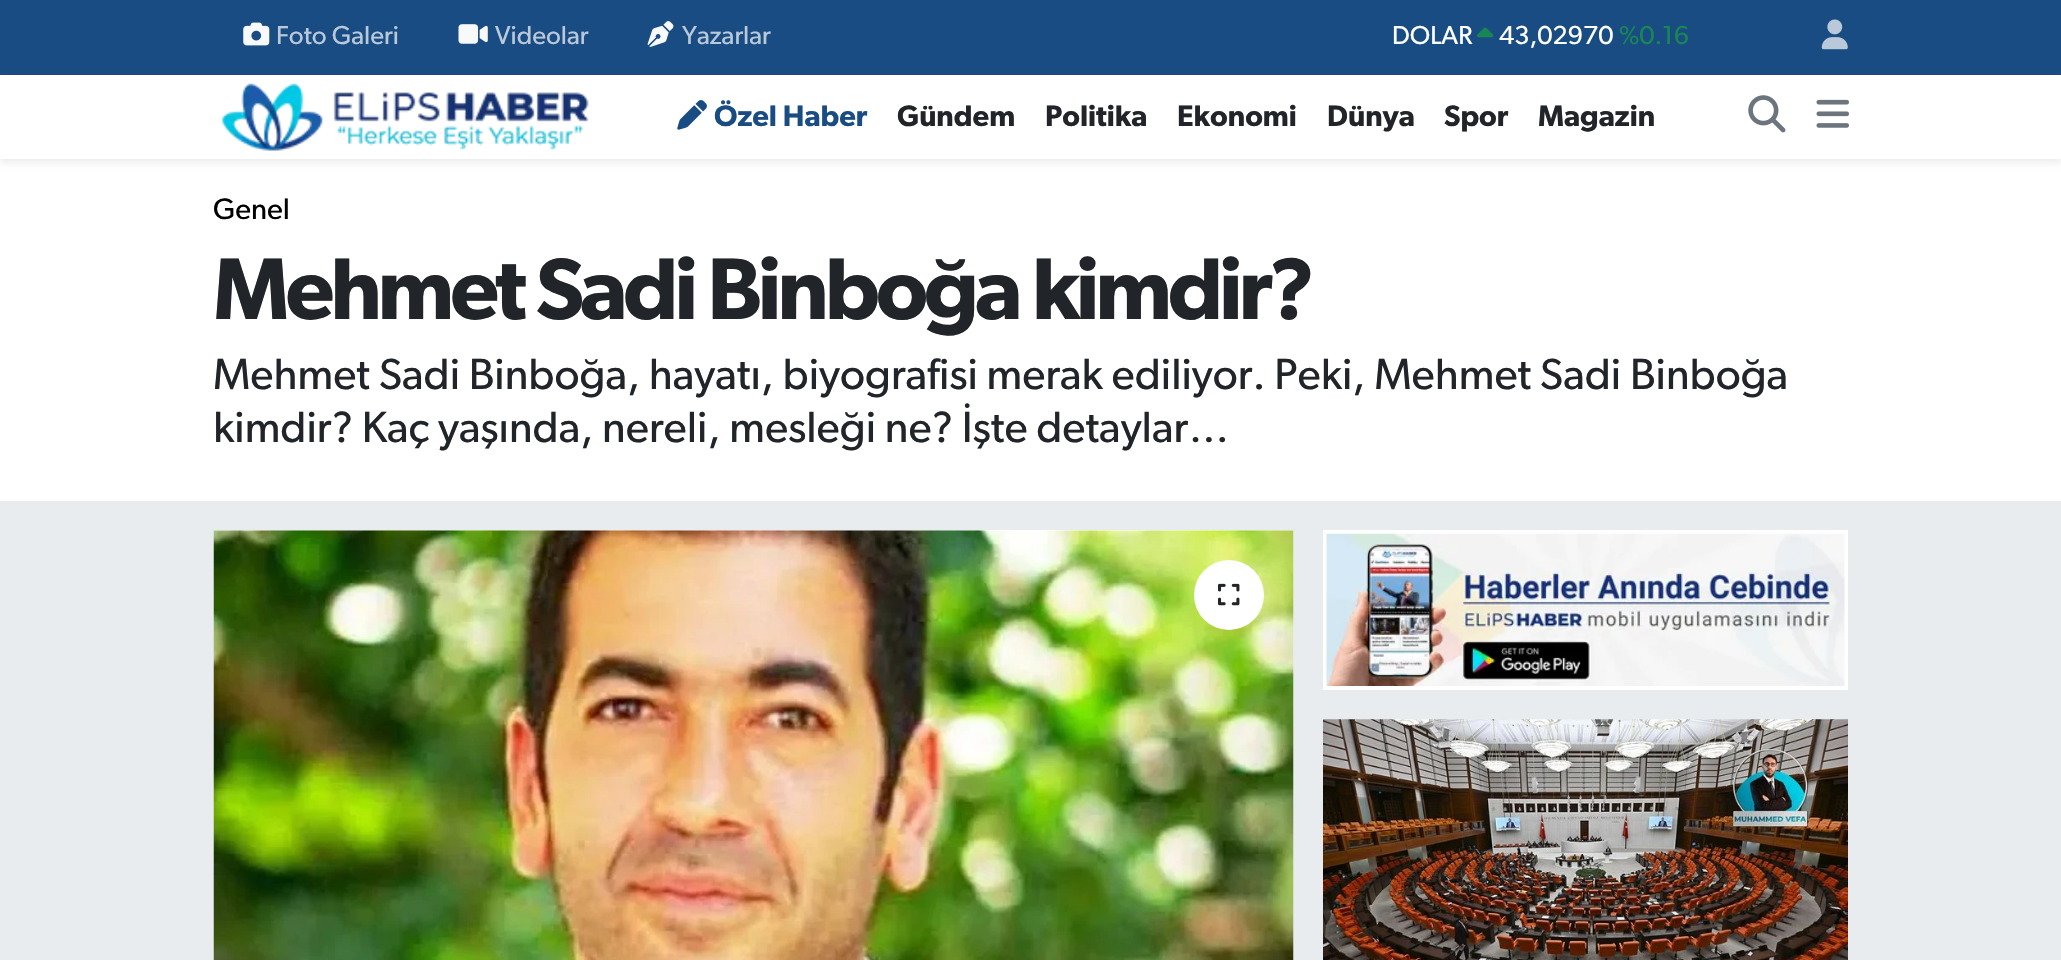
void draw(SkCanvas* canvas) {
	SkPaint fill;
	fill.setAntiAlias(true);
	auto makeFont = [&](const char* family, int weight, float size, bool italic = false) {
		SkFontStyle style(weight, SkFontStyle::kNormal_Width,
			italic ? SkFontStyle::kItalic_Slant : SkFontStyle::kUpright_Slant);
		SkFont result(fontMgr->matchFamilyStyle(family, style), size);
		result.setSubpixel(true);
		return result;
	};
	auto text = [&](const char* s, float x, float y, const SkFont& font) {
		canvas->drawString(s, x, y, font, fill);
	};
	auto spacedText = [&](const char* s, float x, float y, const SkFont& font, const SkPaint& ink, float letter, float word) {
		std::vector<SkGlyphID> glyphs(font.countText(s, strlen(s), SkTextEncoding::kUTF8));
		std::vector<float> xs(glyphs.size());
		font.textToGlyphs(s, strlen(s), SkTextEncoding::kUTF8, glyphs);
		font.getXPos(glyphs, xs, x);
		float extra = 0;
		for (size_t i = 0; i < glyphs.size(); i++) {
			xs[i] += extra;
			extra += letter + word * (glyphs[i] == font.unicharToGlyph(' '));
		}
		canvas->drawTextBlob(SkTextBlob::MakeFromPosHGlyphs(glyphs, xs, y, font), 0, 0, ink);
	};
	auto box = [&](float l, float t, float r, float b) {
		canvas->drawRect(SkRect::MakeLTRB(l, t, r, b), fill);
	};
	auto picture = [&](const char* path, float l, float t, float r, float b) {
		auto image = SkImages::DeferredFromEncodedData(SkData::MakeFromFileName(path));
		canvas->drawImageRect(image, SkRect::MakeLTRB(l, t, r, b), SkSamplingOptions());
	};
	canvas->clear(0xFFE9ECEF);
	fill.setColor(0xFF194C82);
	box(0, 0, 2061, 75);
	picture("image0.png", 243, 22, 270, 46);
	picture("image1.png", 458, 24, 488, 44);
	picture("image2.png", 647, 21, 674, 47);
	picture("image3.png", 1477, 27, 1494, 38);
	picture("image4.png", 1821, 19, 1848, 50);
	fill.setColor(0xFFFFFFFF);
	box(0, 159, 2061, 501);
	fill.setColor(0x12000000);
	fill.setMaskFilter(SkMaskFilter::MakeBlur(kNormal_SkBlurStyle, 3.5f));
	canvas->drawRect(SkRect::MakeLTRB(0, 79, 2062, 163), fill);
	fill.setMaskFilter(nullptr);
	fill.setColor(0xFFFFFFFF);
	box(0, 75, 2061, 159);
	picture("image5.png", 221, 83, 589, 151);
	picture("image6.png", 677, 100, 707, 130);
	picture("image7.png", 1748, 95, 1786, 133);
	picture("image8.png", 1816, 99, 1849, 128);
	box(214, 530, 1293, 531);
	picture("image9.png", 213, 530, 1294, 960);
	canvas->drawCircle(1229, 595, 35, fill);
	picture("image10.png", 1218, 583, 1240, 606);
	box(1323, 530, 1848, 690);
	picture("image11.png", 1326, 533, 1845, 686);
	picture("image12.png", 1323, 719, 1848, 960);
	auto font1 = makeFont("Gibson", 400, 26);
	fill.setColor(0xFFBAC9DA);
	text("Foto Galeri", 276, 44, font1);
	text("Videolar", 495, 44, font1);
	text("Yazarlar", 682, 44, font1);
	fill.setColor(0xFFFFFFFF);
	text("DOLAR", 1392, 44, font1);
	text("43,02970", 1499, 44, font1);
	fill.setColor(0xFF198754);
	text("%0.16", 1619, 44, font1);
	auto font2 = makeFont("Gibson", 600, 29.75f);
	fill.setColor(0xFF194C82);
	text("Özel Haber", 714, 126, font2);
	fill.setColor(0xFF212529);
	text("Gündem", 897, 126, font2);
	text("Politika", 1045, 126, font2);
	text("Ekonomi", 1177, 126, font2);
	text("Dünya", 1327, 126, font2);
	text("Spor", 1444, 126, font2);
	text("Magazin", 1538, 126, font2);
	auto font3 = makeFont("Gibson", 400, 29.75f);
	fill.setColor(0xFF000000);
	text("Genel", 213, 219, font3);
	auto font4 = makeFont("Gibson", 600, 87.5f);
	fill.setColor(0xFF212529);
	spacedText("Mehmet Sadi Binboğa kimdir?", 213, 319, font4, fill, -4, 0);
	auto font5 = makeFont("Gibson", 400, 43.75f);
	text("Mehmet Sadi Binboğa, hayatı, biyografisi merak ediliyor. Peki, Mehmet Sadi Binboğa", 213, 389, font5);
	text("kimdir? Kaç yaşında, nereli, mesleği ne? İşte detaylar…", 213, 442, font5);
}
